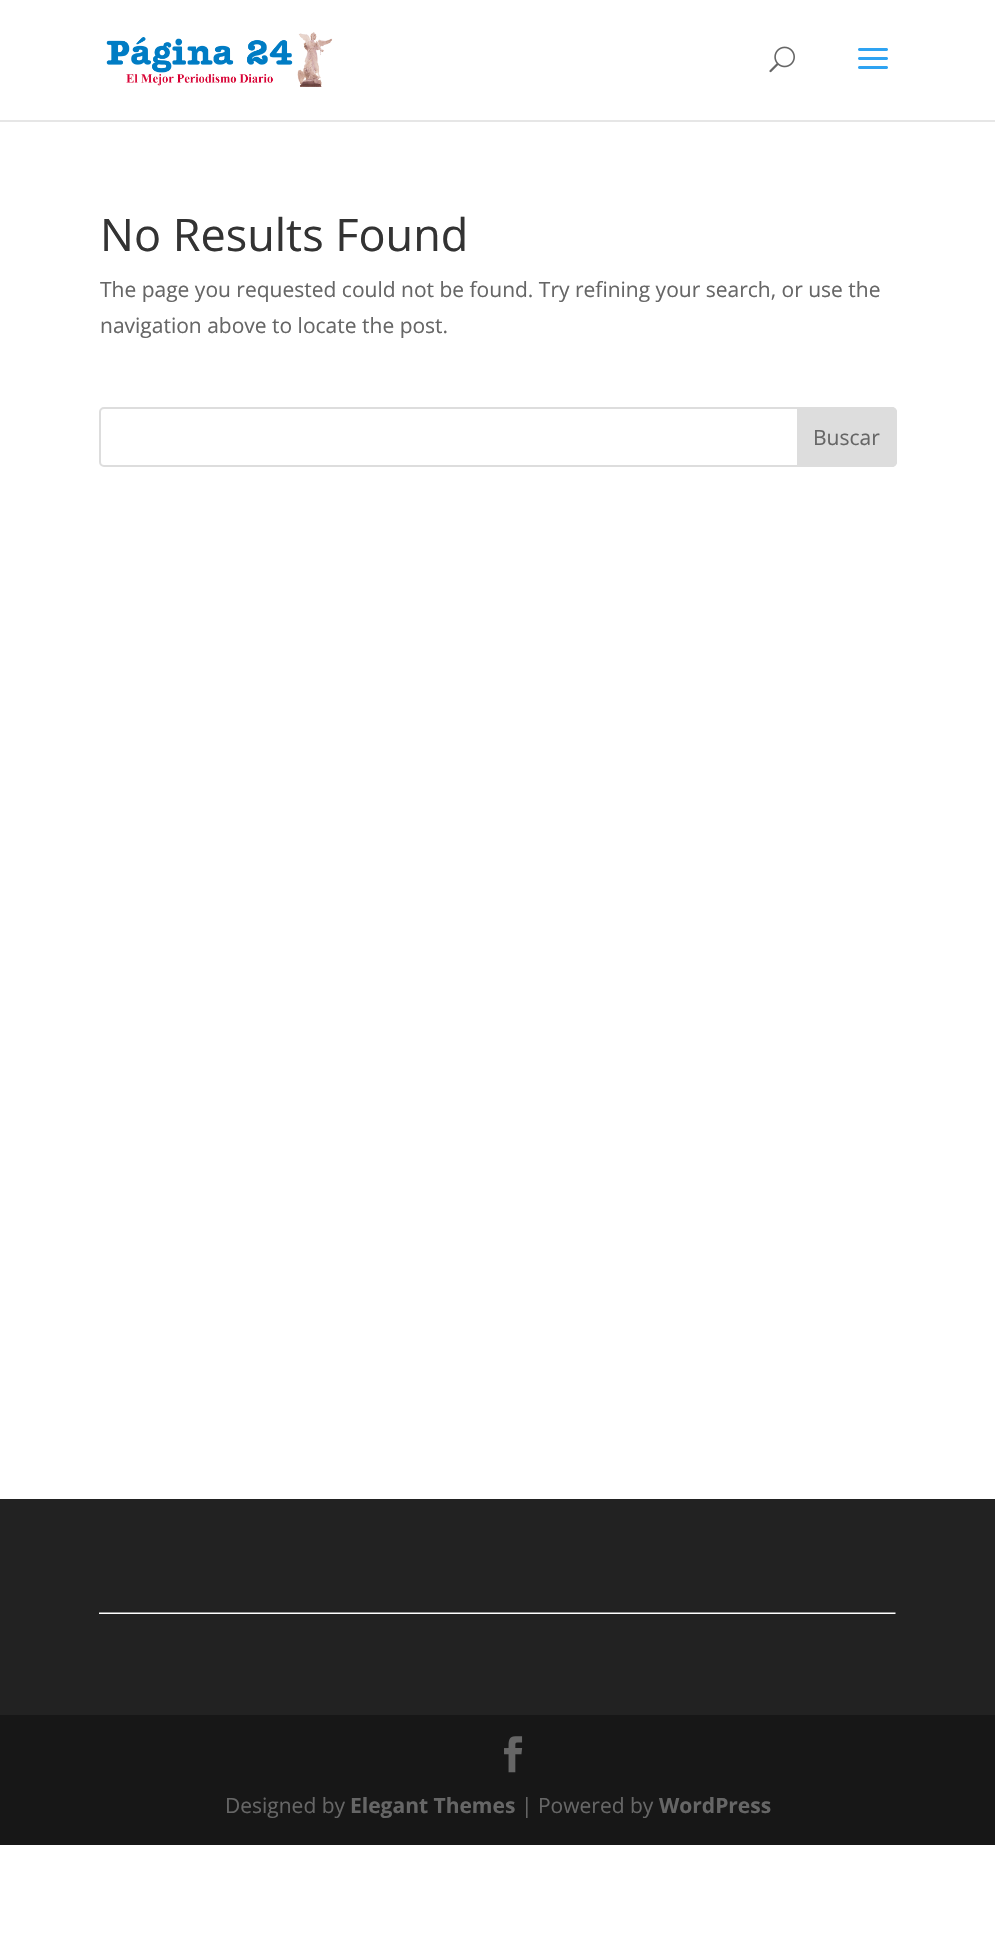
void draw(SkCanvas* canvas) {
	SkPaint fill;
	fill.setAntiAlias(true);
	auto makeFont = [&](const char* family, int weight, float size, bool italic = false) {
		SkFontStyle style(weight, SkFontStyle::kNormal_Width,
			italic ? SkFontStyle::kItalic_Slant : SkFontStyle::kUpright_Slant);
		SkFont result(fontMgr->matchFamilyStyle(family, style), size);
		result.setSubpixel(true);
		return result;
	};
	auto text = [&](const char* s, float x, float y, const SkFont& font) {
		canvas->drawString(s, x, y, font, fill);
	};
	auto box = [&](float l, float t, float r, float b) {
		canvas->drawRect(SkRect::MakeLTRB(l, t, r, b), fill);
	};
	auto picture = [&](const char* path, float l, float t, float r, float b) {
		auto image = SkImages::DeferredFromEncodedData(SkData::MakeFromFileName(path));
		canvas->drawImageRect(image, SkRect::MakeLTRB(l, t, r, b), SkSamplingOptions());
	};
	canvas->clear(0xFFFFFFFF);
	fill.setColor(0xFFE6E6E6);
	box(0, 120, 995, 122);
	picture("image0.png", 106, 32, 333, 87);
	picture("image1.png", 769, 46, 795, 73);
	picture("image2.png", 858, 48, 888, 69);
	fill.setStyle(SkPaint::kStroke_Style);
	fill.setStrokeWidth(2);
	fill.setColor(0xFFDDDDDD);
	canvas->drawRoundRect(SkRect::MakeLTRB(100, 408, 896, 466), 4, 4, fill);
	fill.setStyle(SkPaint::kFill_Style);
	canvas->drawPath(SkPathBuilder().moveTo(798, 408).lineTo(892, 408).cubicTo(894, 408, 896, 410, 896, 412).lineTo(896, 462).cubicTo(896, 464, 894, 466, 892, 466).lineTo(798, 466).close().detach(), fill);
	fill.setStyle(SkPaint::kStroke_Style);
	canvas->drawPath(SkPathBuilder().moveTo(798, 408).lineTo(892, 408).cubicTo(894, 408, 896, 410, 896, 412).lineTo(896, 462).cubicTo(896, 464, 894, 466, 892, 466).lineTo(798, 466).close().detach(), fill);
	fill.setStyle(SkPaint::kFill_Style);
	fill.setColor(0xFF222222);
	box(0, 1499, 995, 1715);
	picture("image3.png", 99, 1612, 896, 1614);
	fill.setColor(0xFF171717);
	box(0, 1715, 995, 1845);
	picture("image4.png", 504, 1736, 523, 1773);
	auto font1 = makeFont("Open Sans", 400, 45);
	fill.setColor(0xFF333333);
	text("No Results Found", 100, 251, font1);
	auto font2 = makeFont("Open Sans", 400, 21);
	fill.setColor(0xFF666666);
	text("The page you requested could not be found. Try refining your search, or use the", 100, 297, font2);
	text("navigation above to locate the post.", 100, 333, font2);
	text("Buscar", 813, 445, font2);
	text("Designed by", 225, 1813, font2);
	auto font3 = makeFont("Open Sans", 700, 21);
	text("Elegant Themes", 350, 1813, font3);
	text("| Powered by", 521, 1813, font2);
	text("WordPress", 659, 1813, font3);
}
